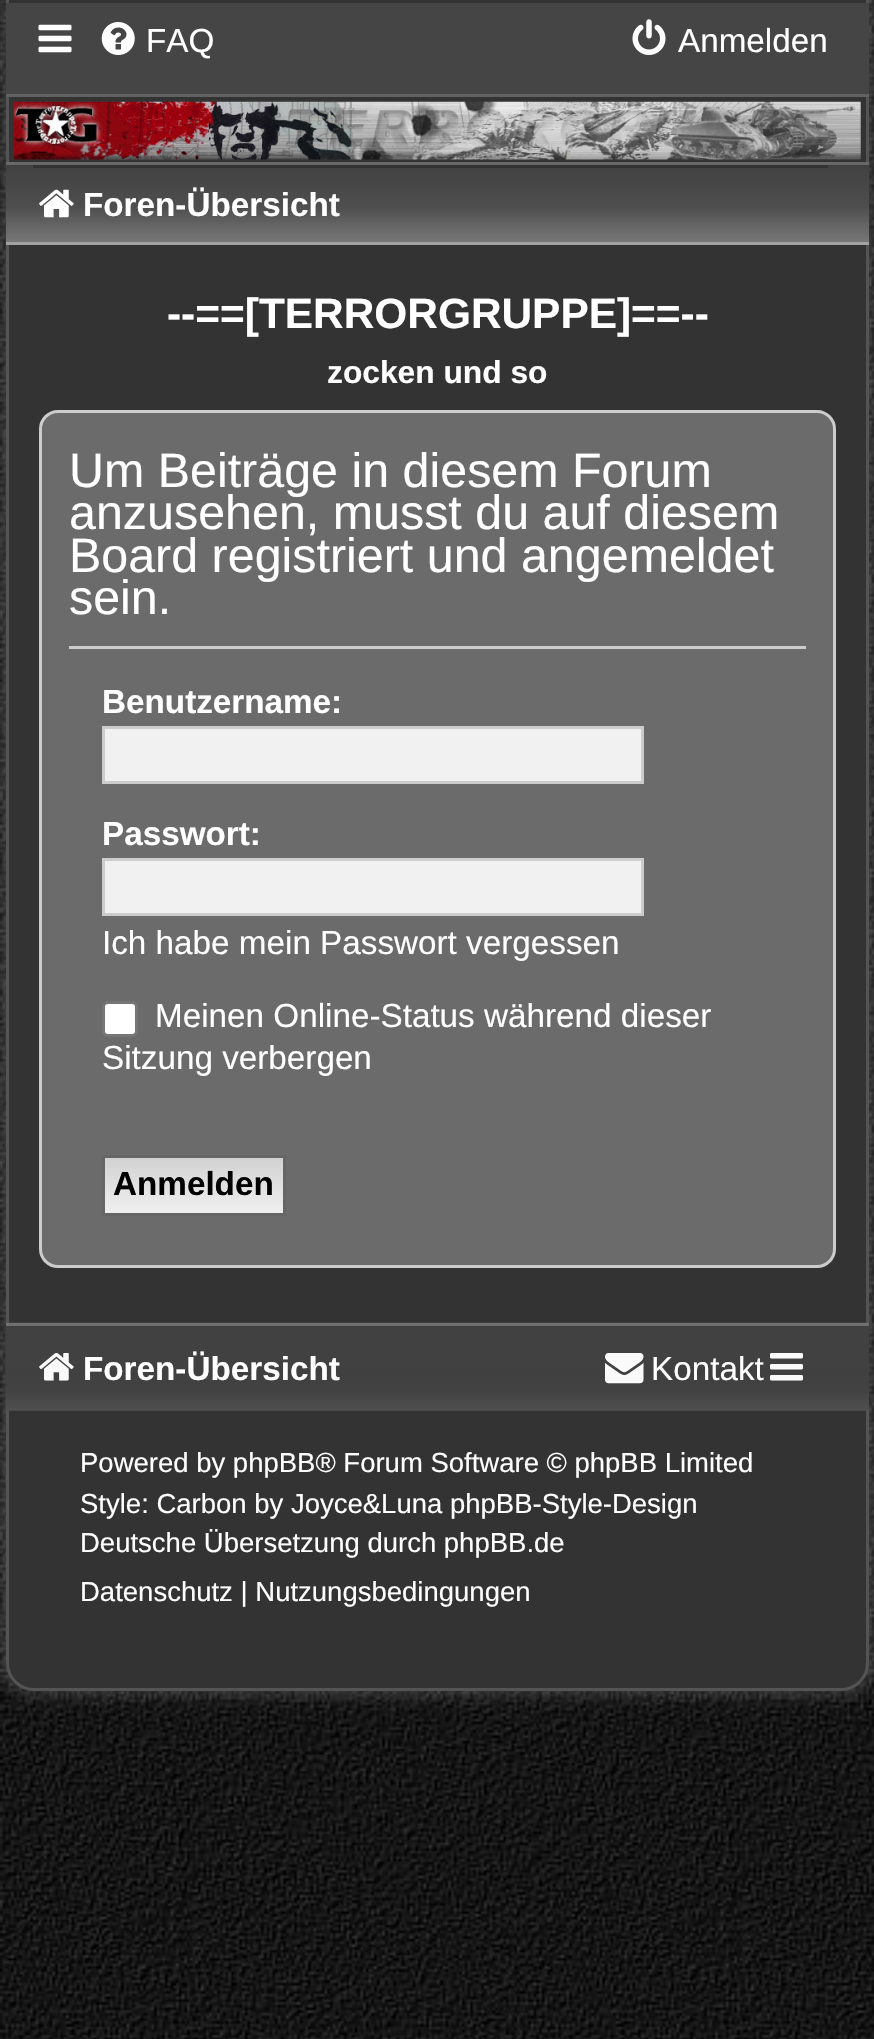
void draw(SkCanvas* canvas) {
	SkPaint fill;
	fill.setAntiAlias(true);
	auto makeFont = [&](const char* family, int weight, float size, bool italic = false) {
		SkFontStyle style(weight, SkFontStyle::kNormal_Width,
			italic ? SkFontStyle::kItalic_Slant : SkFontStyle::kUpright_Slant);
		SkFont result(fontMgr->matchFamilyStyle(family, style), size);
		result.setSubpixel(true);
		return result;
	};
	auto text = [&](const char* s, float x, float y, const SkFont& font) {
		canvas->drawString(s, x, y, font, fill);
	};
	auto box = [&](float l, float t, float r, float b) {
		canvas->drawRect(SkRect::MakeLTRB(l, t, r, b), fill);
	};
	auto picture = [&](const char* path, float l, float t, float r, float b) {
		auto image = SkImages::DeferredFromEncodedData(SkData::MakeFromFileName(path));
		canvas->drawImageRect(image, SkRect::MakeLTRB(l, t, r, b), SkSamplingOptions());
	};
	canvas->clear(0xFFFFFFFF);
	picture("image0.png", 0, 1766, 874, 2039);
	picture("image1.png", 0, 0, 874, 1766);
	fill.setColor(0x33FFFFFF);
	fill.setMaskFilter(SkMaskFilter::MakeBlur(kNormal_SkBlurStyle, 8));
	canvas->drawRoundRect(SkRect::MakeLTRB(0, -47, 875, 1694), 33, 33, fill);
	fill.setMaskFilter(nullptr);
	fill.setColor(0xFF333333);
	canvas->drawPath(SkPathBuilder().moveTo(7.5f, -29.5f).lineTo(867.5f, -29.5f).lineTo(867.5f, 1663).cubicTo(867.5f, 1677.5f, 855.5f, 1689.5f, 841, 1689.5f).lineTo(34, 1689.5f).cubicTo(19.5f, 1689.5f, 7.5f, 1677.5f, 7.5f, 1663).close().detach(), fill);
	fill.setStyle(SkPaint::kStroke_Style);
	fill.setStrokeWidth(3);
	fill.setColor(0xFF535453);
	canvas->drawPath(SkPathBuilder().moveTo(7.5f, -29.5f).lineTo(867.5f, -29.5f).lineTo(867.5f, 1663).cubicTo(867.5f, 1677.5f, 855.5f, 1689.5f, 841, 1689.5f).lineTo(34, 1689.5f).cubicTo(19.5f, 1689.5f, 7.5f, 1677.5f, 7.5f, 1663).close().detach(), fill);
	fill.setStyle(SkPaint::kFill_Style);
	fill.setColor(0xFF454545);
	box(6, 3, 869, 94);
	picture("image2.png", 38, 24, 72, 53);
	picture("image3.png", 101, 22, 135, 55);
	picture("image4.png", 632, 19, 666, 55);
	fill.setColor(0xFF616161);
	box(6, 94, 869, 97);
	picture("image5.png", 13, 101, 861, 160);
	{
		const SkColor colors[] = {0xFF414141, 0xFF4E4E4E, 0xFF878787, 0xFFFAFAFA};
		const float stops[] = {0, 0.35f, 0.76f, 1};
		const SkPoint ends[] = {{437, 165}, {437, 284}};
		fill.setShader(SkGradientShader::MakeLinear(ends, colors, stops, 4, SkTileMode::kClamp));
		fill.setAlpha(255);
	}
	box(6, 165, 869, 242);
	fill.setShader(nullptr);
	fill.setColor(0xFF666766);
	box(6, 162, 869, 165);
	fill.setColor(0xFFA1A2A1);
	box(6, 242, 869, 245);
	fill.setColor(0xFF333333);
	box(33, 165, 828, 168);
	picture("image6.png", 39, 189, 74, 218);
	fill.setColor(0xFF6B6B6B);
	canvas->drawRoundRect(SkRect::MakeLTRB(40.5f, 411.5f, 834.5f, 1266.5f), 17.5f, 17.5f, fill);
	fill.setStyle(SkPaint::kStroke_Style);
	fill.setColor(0xFFCCCCCC);
	canvas->drawRoundRect(SkRect::MakeLTRB(40.5f, 411.5f, 834.5f, 1266.5f), 17.5f, 17.5f, fill);
	fill.setStyle(SkPaint::kFill_Style);
	box(69, 646, 806, 649);
	fill.setColor(0xFFF1F1F1);
	canvas->drawRect(SkRect::MakeLTRB(103.5f, 727.5f, 642.5f, 782.5f), fill);
	fill.setStyle(SkPaint::kStroke_Style);
	fill.setColor(0xFFCCCCCC);
	canvas->drawRect(SkRect::MakeLTRB(103.5f, 727.5f, 642.5f, 782.5f), fill);
	fill.setStyle(SkPaint::kFill_Style);
	fill.setColor(0xFFF1F1F1);
	canvas->drawRect(SkRect::MakeLTRB(103.5f, 859.5f, 642.5f, 914.5f), fill);
	fill.setStyle(SkPaint::kStroke_Style);
	fill.setColor(0xFFCCCCCC);
	canvas->drawRect(SkRect::MakeLTRB(103.5f, 859.5f, 642.5f, 914.5f), fill);
	fill.setStyle(SkPaint::kFill_Style);
	fill.setColor(0xFFFFFFFF);
	canvas->drawRoundRect(SkRect::MakeLTRB(103.5f, 1002.5f, 136.5f, 1035.5f), 4.5f, 4.5f, fill);
	fill.setStyle(SkPaint::kStroke_Style);
	fill.setColor(0xFF767676);
	canvas->drawRoundRect(SkRect::MakeLTRB(103.5f, 1002.5f, 136.5f, 1035.5f), 4.5f, 4.5f, fill);
	fill.setStyle(SkPaint::kFill_Style);
	{
		const SkColor colors[] = {0xFFD2D2D2, 0xFFEFEFEF};
		const float stops[] = {0, 1};
		const SkPoint ends[] = {{194, 1158}, {194, 1213}};
		fill.setShader(SkGradientShader::MakeLinear(ends, colors, stops, 2, SkTileMode::kClamp));
		fill.setAlpha(255);
	}
	box(105, 1158, 283, 1213);
	fill.setStyle(SkPaint::kStroke_Style);
	fill.setShader(nullptr);
	fill.setColor(0xFF666666);
	canvas->drawRect(SkRect::MakeLTRB(103.5f, 1156.5f, 284.5f, 1214.5f), fill);
	picture("image7.png", 5, 1322, 869, 1411);
	fill.setStyle(SkPaint::kFill_Style);
	fill.setColor(0xFF707070);
	box(6, 1323, 869, 1326);
	picture("image8.png", 39, 1352, 74, 1381);
	picture("image9.png", 605, 1353, 644, 1384);
	picture("image10.png", 770, 1353, 803, 1381);
	auto font1 = makeFont("Liberation Sans", 400, 33.25f);
	fill.setColor(0xFFFFFFFF);
	text("FAQ", 146, 52, font1);
	text("Anmelden", 678, 52, font1);
	auto font2 = makeFont("Liberation Sans", 700, 33.25f);
	text("Foren-Übersicht", 83, 216, font2);
	auto font3 = makeFont("Liberation Sans", 700, 42.4f);
	text("--==[TERRORGRUPPE]==--", 167, 328, font3);
	auto font4 = makeFont("Liberation Sans", 700, 31.75f);
	text("zocken und so", 327, 383, font4);
	auto font5 = makeFont("Liberation Sans", 400, 48.4f);
	text("Um Beiträge in diesem Forum", 69, 487, font5);
	text("anzusehen, musst du auf diesem", 69, 529, font5);
	text("Board registriert und angemeldet", 69, 572, font5);
	text("sein.", 69, 614, font5);
	text("Benutzername:", 102, 713, font2);
	text("Passwort:", 102, 845, font2);
	text("Ich habe mein Passwort vergessen", 102, 954, font1);
	text("Meinen Online-Status während dieser", 155, 1027, font1);
	text("Sitzung verbergen", 102, 1069, font1);
	fill.setColor(0xFF000000);
	text("Anmelden", 113, 1195, font2);
	fill.setColor(0xFFFFFFFF);
	text("Foren-Übersicht", 83, 1380, font2);
	text("Kontakt", 651, 1380, font1);
	auto font6 = makeFont("Liberation Sans", 400, 27.5f);
	text("Powered by phpBB® Forum Software © phpBB Limited", 80, 1472, font6);
	text("Style: Carbon by Joyce&Luna phpBB-Style-Design", 80, 1513, font6);
	text("Deutsche Übersetzung durch phpBB.de", 80, 1552, font6);
	text("Datenschutz | Nutzungsbedingungen", 80, 1601, font6);
}
